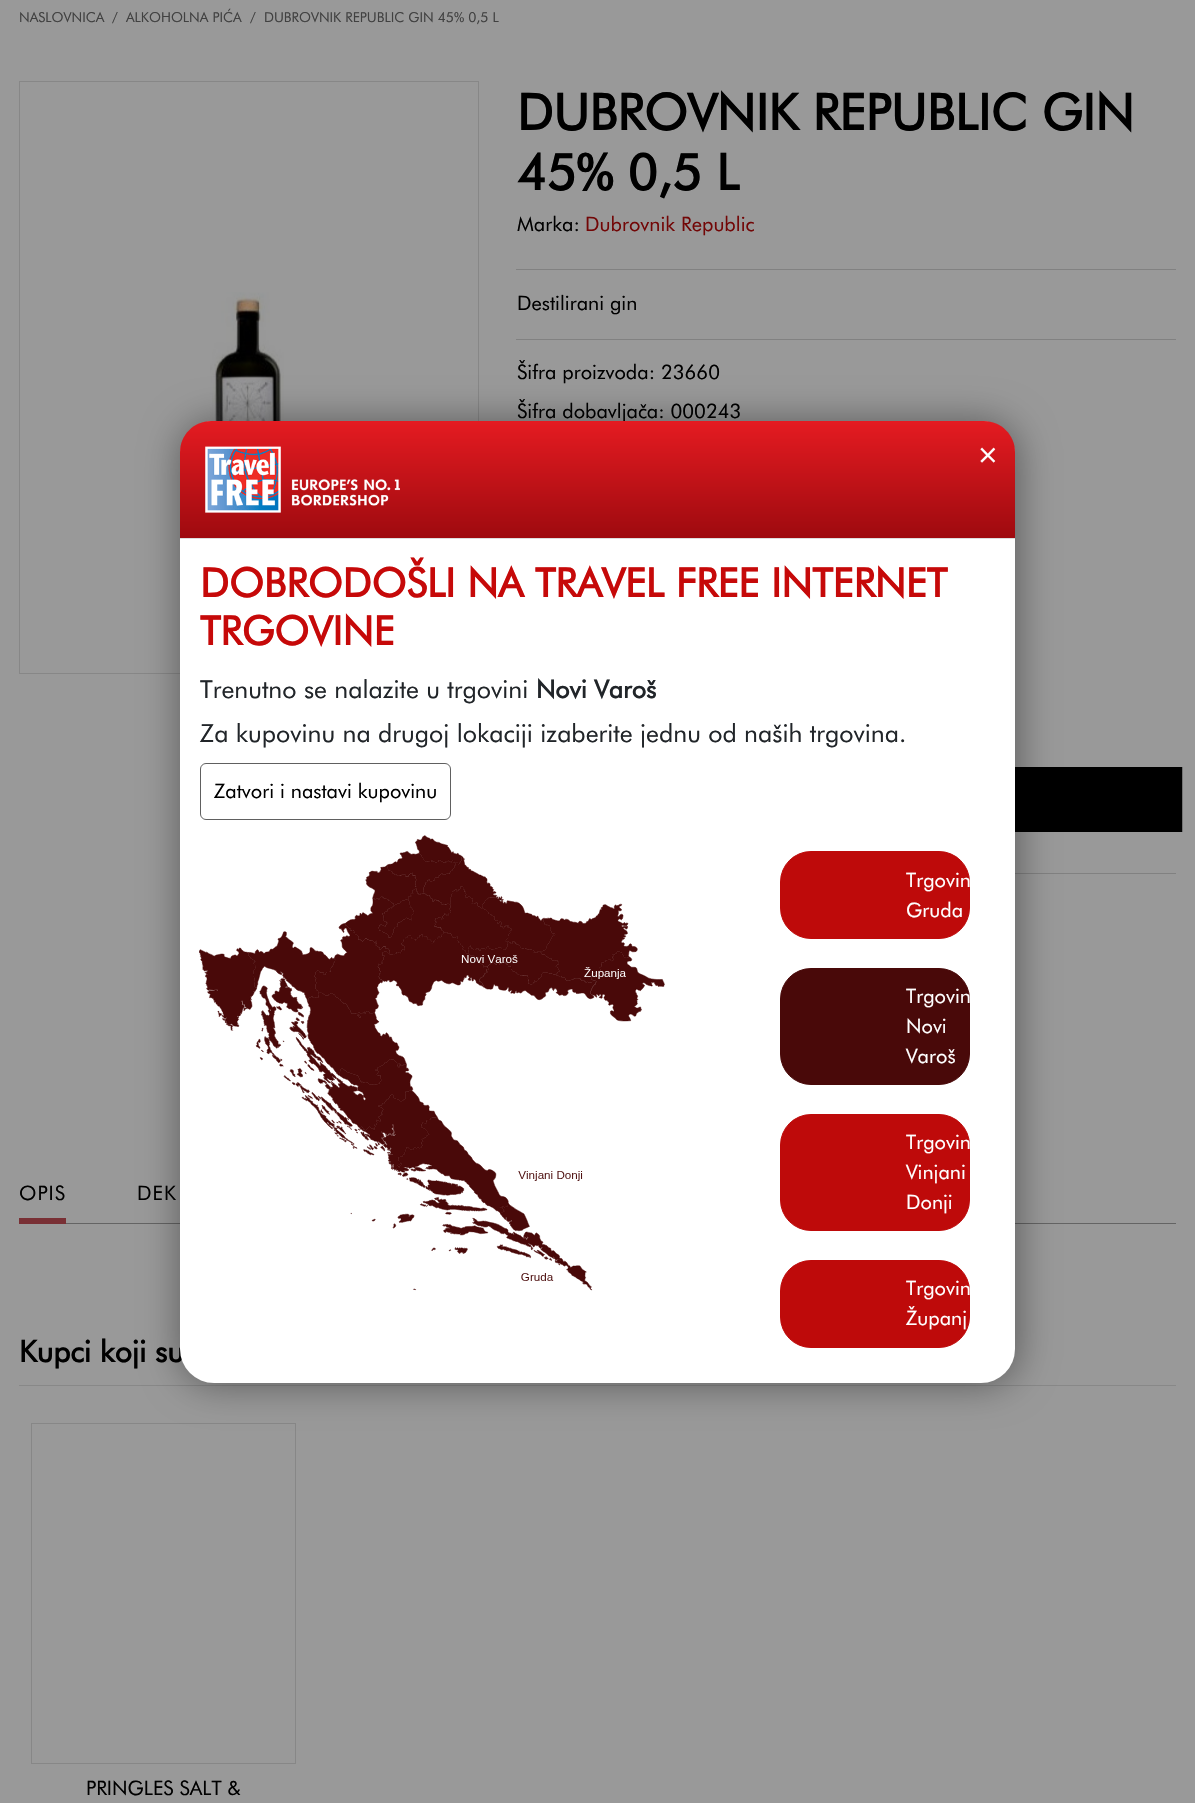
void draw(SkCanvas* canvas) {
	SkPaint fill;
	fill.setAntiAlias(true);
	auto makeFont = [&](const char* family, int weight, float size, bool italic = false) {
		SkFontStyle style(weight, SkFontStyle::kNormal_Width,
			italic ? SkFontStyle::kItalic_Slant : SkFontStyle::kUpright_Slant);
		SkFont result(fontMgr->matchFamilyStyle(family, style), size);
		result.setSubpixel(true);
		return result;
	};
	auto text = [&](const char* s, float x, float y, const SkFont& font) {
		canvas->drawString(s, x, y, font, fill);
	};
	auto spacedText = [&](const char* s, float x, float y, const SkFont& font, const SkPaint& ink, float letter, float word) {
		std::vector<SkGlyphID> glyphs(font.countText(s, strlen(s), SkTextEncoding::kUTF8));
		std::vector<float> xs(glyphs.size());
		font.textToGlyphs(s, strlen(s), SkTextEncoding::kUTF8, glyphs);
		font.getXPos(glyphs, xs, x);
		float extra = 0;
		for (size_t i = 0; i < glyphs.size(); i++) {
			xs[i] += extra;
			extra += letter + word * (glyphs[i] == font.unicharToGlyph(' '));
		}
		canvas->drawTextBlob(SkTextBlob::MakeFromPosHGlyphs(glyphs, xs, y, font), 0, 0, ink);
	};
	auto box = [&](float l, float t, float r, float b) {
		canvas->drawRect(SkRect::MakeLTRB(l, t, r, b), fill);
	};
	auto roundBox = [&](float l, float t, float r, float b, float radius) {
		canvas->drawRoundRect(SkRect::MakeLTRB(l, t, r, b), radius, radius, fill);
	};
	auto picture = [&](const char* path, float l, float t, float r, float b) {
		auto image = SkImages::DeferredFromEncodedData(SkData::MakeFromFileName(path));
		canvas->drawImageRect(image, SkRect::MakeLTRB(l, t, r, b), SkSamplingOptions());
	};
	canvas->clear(0xFF999999);
	fill.setStyle(SkPaint::kStroke_Style);
	fill.setStrokeWidth(1);
	fill.setColor(0xFF878787);
	canvas->drawRect(SkRect::MakeLTRB(19.5f, 81.5f, 478.5f, 673.5f), fill);
	picture("image0.png", 210, 292, 284, 422);
	fill.setStyle(SkPaint::kFill_Style);
	fill.setColor(0xFF818181);
	box(516, 269, 1176, 270);
	box(516, 339, 1176, 340);
	picture("image1.png", 1015, 767, 1183, 832);
	box(1015, 873, 1176, 874);
	fill.setColor(0xFF646464);
	box(66, 1223, 1176, 1224);
	fill.setColor(0xFF793035);
	box(19, 1218, 66, 1224);
	fill.setColor(0xFF888888);
	box(19, 1385, 1176, 1386);
	fill.setStyle(SkPaint::kStroke_Style);
	fill.setColor(0xFF878787);
	canvas->drawRect(SkRect::MakeLTRB(31.5f, 1423.5f, 295.5f, 1763.5f), fill);
	fill.setStyle(SkPaint::kFill_Style);
	fill.setColor(0x66000000);
	fill.setMaskFilter(SkMaskFilter::MakeBlur(kNormal_SkBlurStyle, 19));
	canvas->drawRoundRect(SkRect::MakeLTRB(180, 421, 1018, 1385), 35, 35, fill);
	fill.setMaskFilter(nullptr);
	auto font1 = makeFont("Futura", 400, 13.75f);
	fill.setColor(0xFF414141);
	text("NASLOVNICA", 19, 22, font1);
	text("/", 112, 22, font1);
	text("ALKOHOLNA PIĆA", 126, 22, font1);
	text("/", 250, 22, font1);
	text("DUBROVNIK REPUBLIC GIN 45% 0,5 L", 264, 22, font1);
	auto font2 = makeFont("Futura", 700, 50);
	fill.setColor(0xFF000000);
	text("DUBROVNIK REPUBLIC GIN", 517, 130, font2);
	text("45% 0,5 L", 517, 190, font2);
	auto font3 = makeFont("Futura", 400, 20);
	text("Marka:", 517, 231, font3);
	fill.setColor(0xFF720606);
	text("Dubrovnik Republic", 585, 231, font3);
	fill.setColor(0xFF000000);
	text("Destilirani gin", 517, 310, font3);
	text("Šifra proizvoda: 23660", 517, 379, font3);
	text("Šifra dobavljača: 000243", 517, 418, font3);
	spacedText("OPIS", 19, 1200, font3, fill, 1, 0);
	spacedText("DEK", 137, 1200, font3, fill, 1, 0);
	auto font4 = makeFont("Futura", 700, 30);
	text("Kupci koji su", 19, 1362, font4);
	text("PRINGLES SALT &", 86, 1795, font3);
	fill.setColor(0xFFFFFFFF);
	roundBox(180, 421, 1015, 1383, 34);
	{
		const SkColor colors[] = {0xFF9E0A0F, 0xFFE41B21};
		const float stops[] = {0, 1};
		const SkPoint ends[] = {{598, 538}, {598, 422}};
		fill.setShader(SkGradientShader::MakeLinear(ends, colors, stops, 2, SkTileMode::kClamp));
		fill.setAlpha(255);
	}
	canvas->drawPath(SkPathBuilder().moveTo(211, 421).lineTo(984, 421).cubicTo(1001, 421, 1015, 435, 1015, 452).lineTo(1015, 538).lineTo(180, 538).lineTo(180, 452).cubicTo(180, 435, 194, 421, 211, 421).close().detach(), fill);
	fill.setShader(nullptr);
	fill.setColor(0xFFDDDDDD);
	box(180, 538, 1015, 539);
	picture("image2.png", 205, 446, 400, 513);
	auto font5 = makeFont("Futura", 700, 25);
	fill.setColor(0xFFFFFFFF);
	text("×", 977, 463, font5);
	auto font6 = makeFont("Futura", 700, 40);
	fill.setColor(0xFFC60909);
	text("DOBRODOŠLI NA TRAVEL FREE INTERNET", 200, 597, font6);
	text("TRGOVINE", 200, 645, font6);
	auto font7 = makeFont("Futura", 400, 25);
	fill.setColor(0xFF212529);
	text("Trenutno se nalazite u trgovini", 200, 698, font7);
	text("Novi Varoš", 536, 698, font5);
	text("Za kupovinu na drugoj lokaciji izaberite jednu od naših trgovina.", 200, 742, font7);
	fill.setStyle(SkPaint::kStroke_Style);
	fill.setColor(0xFF606060);
	canvas->drawRoundRect(SkRect::MakeLTRB(200.5f, 763.5f, 450.5f, 819.5f), 5.5f, 5.5f, fill);
	fill.setStyle(SkPaint::kFill_Style);
	fill.setColor(0xFF000000);
	text("Zatvori i nastavi kupovinu", 214, 798, font3);
	picture("image3.png", 199, 835, 665, 1291);
	fill.setColor(0xFFBE0A0A);
	canvas->drawRoundRect(SkRect::MakeLTRB(780.5f, 851.5f, 969.5f, 938.5f), 30.5f, 30.5f, fill);
	fill.setStyle(SkPaint::kStroke_Style);
	canvas->drawRoundRect(SkRect::MakeLTRB(780.5f, 851.5f, 969.5f, 938.5f), 30.5f, 30.5f, fill);
	fill.setStyle(SkPaint::kFill_Style);
	fill.setColor(0xFFFFFFFF);
	text("Trgovin", 906, 887, font3);
	text("Gruda", 906, 917, font3);
	fill.setColor(0xFF490909);
	canvas->drawRoundRect(SkRect::MakeLTRB(780.5f, 968.5f, 969.5f, 1084.5f), 30.5f, 30.5f, fill);
	fill.setStyle(SkPaint::kStroke_Style);
	canvas->drawRoundRect(SkRect::MakeLTRB(780.5f, 968.5f, 969.5f, 1084.5f), 30.5f, 30.5f, fill);
	fill.setStyle(SkPaint::kFill_Style);
	fill.setColor(0xFFFFFFFF);
	text("Trgovin", 906, 1003, font3);
	text("Novi", 906, 1033, font3);
	text("Varoš", 906, 1063, font3);
	fill.setColor(0xFFBE0A0A);
	canvas->drawRoundRect(SkRect::MakeLTRB(780.5f, 1114.5f, 969.5f, 1230.5f), 30.5f, 30.5f, fill);
	fill.setStyle(SkPaint::kStroke_Style);
	canvas->drawRoundRect(SkRect::MakeLTRB(780.5f, 1114.5f, 969.5f, 1230.5f), 30.5f, 30.5f, fill);
	fill.setStyle(SkPaint::kFill_Style);
	fill.setColor(0xFFFFFFFF);
	text("Trgovin", 906, 1149, font3);
	text("Vinjani", 906, 1179, font3);
	text("Donji", 906, 1209, font3);
	fill.setColor(0xFFBE0A0A);
	canvas->drawRoundRect(SkRect::MakeLTRB(780.5f, 1260.5f, 969.5f, 1347.5f), 30.5f, 30.5f, fill);
	fill.setStyle(SkPaint::kStroke_Style);
	canvas->drawRoundRect(SkRect::MakeLTRB(780.5f, 1260.5f, 969.5f, 1347.5f), 30.5f, 30.5f, fill);
	fill.setStyle(SkPaint::kFill_Style);
	fill.setColor(0xFFFFFFFF);
	text("Trgovin", 906, 1295, font3);
	text("Županj", 906, 1325, font3);
}
